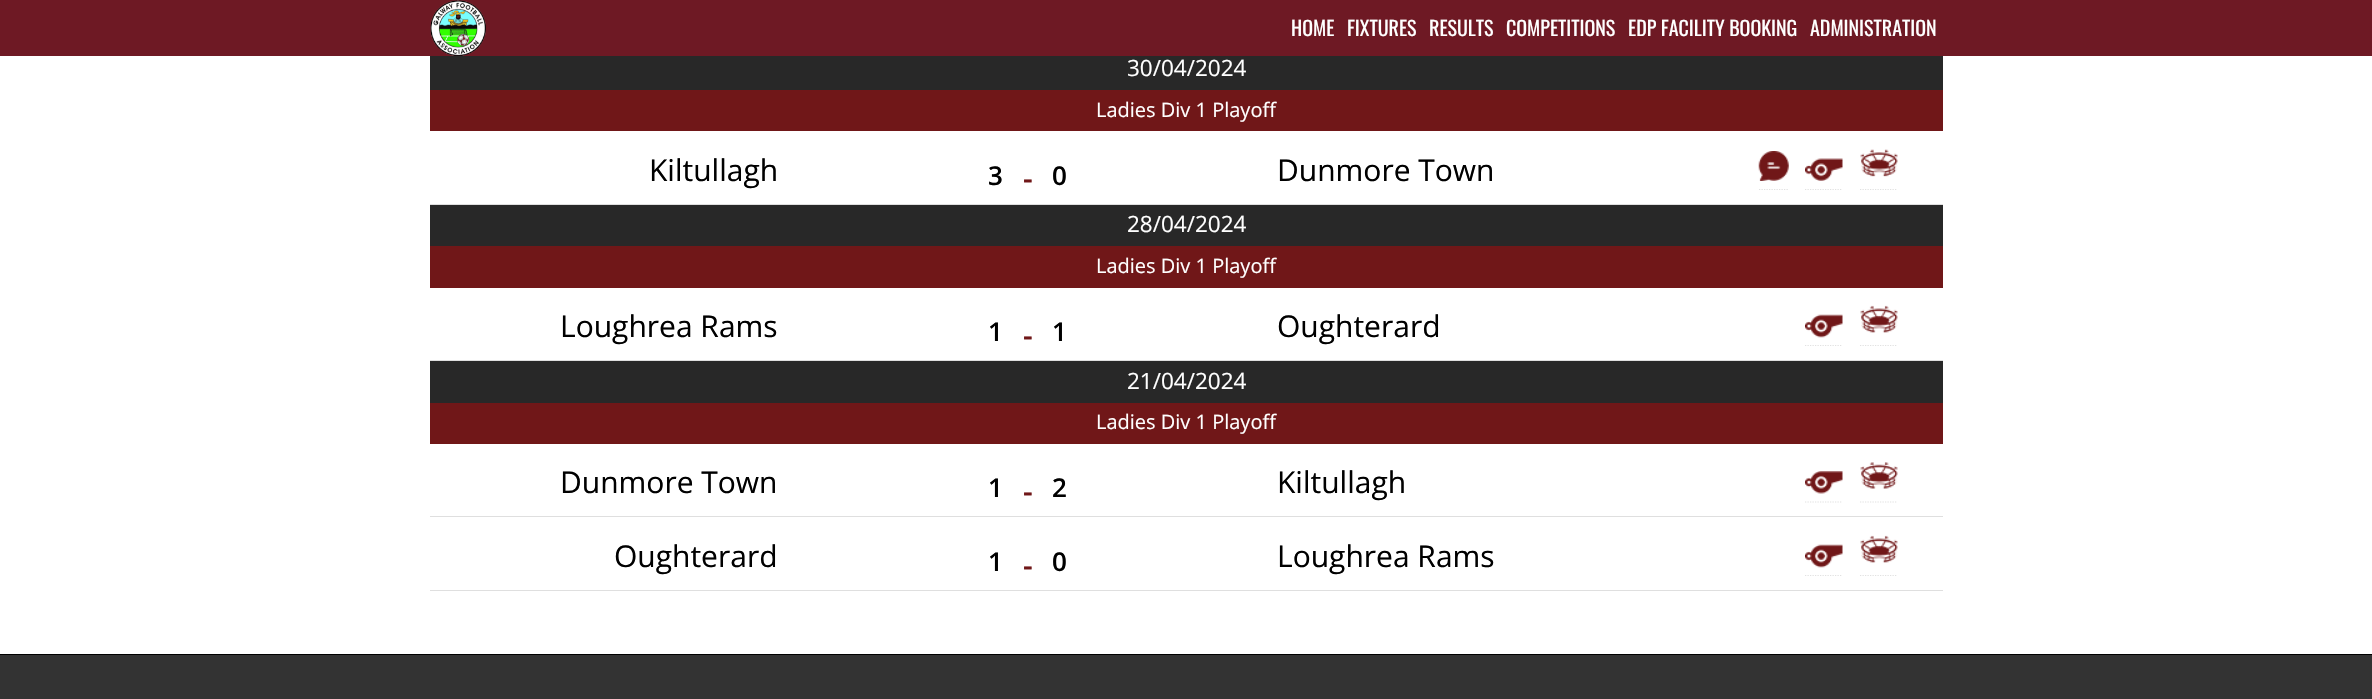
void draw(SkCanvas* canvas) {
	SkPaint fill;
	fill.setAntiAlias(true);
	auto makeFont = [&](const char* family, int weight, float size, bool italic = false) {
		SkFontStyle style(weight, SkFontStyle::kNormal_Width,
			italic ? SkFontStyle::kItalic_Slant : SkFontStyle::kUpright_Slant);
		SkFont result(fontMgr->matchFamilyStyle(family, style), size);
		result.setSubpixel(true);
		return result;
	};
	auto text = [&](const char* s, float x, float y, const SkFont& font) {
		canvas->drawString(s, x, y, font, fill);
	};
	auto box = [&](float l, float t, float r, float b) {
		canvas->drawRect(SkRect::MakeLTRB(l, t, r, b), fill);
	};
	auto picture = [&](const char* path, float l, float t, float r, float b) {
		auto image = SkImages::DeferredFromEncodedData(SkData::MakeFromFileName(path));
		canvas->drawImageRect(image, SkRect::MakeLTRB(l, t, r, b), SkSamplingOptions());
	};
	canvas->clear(0xFFFFFFFF);
	fill.setColor(0xFF6E1924);
	box(0, 0, 2372, 56);
	picture("image0.png", 430, 0, 486, 56);
	fill.setColor(0xFF282828);
	box(430, 56, 1943, 90);
	fill.setColor(0xFF701718);
	box(430, 90, 1943, 131);
	fill.setColor(0xFFDFDFDF);
	box(430, 204, 1943, 205);
	fill.setStyle(SkPaint::kStroke_Style);
	fill.setStrokeWidth(1.2f);
	fill.setColor(0xFFE1E1E1);
	fill.setPathEffect(SkDashPathEffect::Make({{1.25f, 1.25f}}, 0));
	canvas->drawPath(SkPathBuilder().moveTo(1759, 189.5f).lineTo(1789, 189.5f).detach(), fill);
	fill.setPathEffect(nullptr);
	picture("image1.png", 1758, 151, 1789, 181);
	fill.setPathEffect(SkDashPathEffect::Make({{1.25f, 1.25f}}, 0));
	canvas->drawPath(SkPathBuilder().moveTo(1805, 189.5f).lineTo(1842.5f, 189.5f).detach(), fill);
	fill.setPathEffect(nullptr);
	picture("image2.png", 1805, 158, 1843, 181);
	fill.setPathEffect(SkDashPathEffect::Make({{1.25f, 1.25f}}, 0));
	canvas->drawPath(SkPathBuilder().moveTo(1860, 189.5f).lineTo(1897.5f, 189.5f).detach(), fill);
	fill.setPathEffect(nullptr);
	picture("image3.png", 1860, 149, 1898, 177);
	fill.setStyle(SkPaint::kFill_Style);
	fill.setColor(0xFF282828);
	box(430, 205, 1943, 246);
	fill.setColor(0xFF701718);
	box(430, 246, 1943, 288);
	fill.setColor(0xFFDFDFDF);
	box(430, 360, 1943, 361);
	fill.setStyle(SkPaint::kStroke_Style);
	fill.setColor(0xFFE1E1E1);
	fill.setPathEffect(SkDashPathEffect::Make({{1.25f, 1.25f}}, 0));
	canvas->drawPath(SkPathBuilder().moveTo(1805, 345.5f).lineTo(1842.5f, 345.5f).detach(), fill);
	fill.setPathEffect(nullptr);
	picture("image4.png", 1805, 314, 1843, 338);
	fill.setPathEffect(SkDashPathEffect::Make({{1.25f, 1.25f}}, 0));
	canvas->drawPath(SkPathBuilder().moveTo(1860, 345.5f).lineTo(1897.5f, 345.5f).detach(), fill);
	fill.setPathEffect(nullptr);
	picture("image5.png", 1860, 305, 1898, 333);
	fill.setStyle(SkPaint::kFill_Style);
	fill.setColor(0xFF282828);
	box(430, 361, 1943, 403);
	fill.setColor(0xFF701718);
	box(430, 403, 1943, 444);
	fill.setColor(0xFFDFDFDF);
	box(430, 516, 1943, 517);
	fill.setStyle(SkPaint::kStroke_Style);
	fill.setColor(0xFFE1E1E1);
	fill.setPathEffect(SkDashPathEffect::Make({{1.25f, 1.25f}}, 0));
	canvas->drawPath(SkPathBuilder().moveTo(1805, 502).lineTo(1842.5f, 502).detach(), fill);
	fill.setPathEffect(nullptr);
	picture("image6.png", 1805, 471, 1843, 494);
	fill.setPathEffect(SkDashPathEffect::Make({{1.25f, 1.25f}}, 0));
	canvas->drawPath(SkPathBuilder().moveTo(1860, 502).lineTo(1897.5f, 502).detach(), fill);
	fill.setPathEffect(nullptr);
	picture("image7.png", 1860, 462, 1898, 489);
	fill.setStyle(SkPaint::kFill_Style);
	fill.setColor(0xFFDFDFDF);
	box(430, 590, 1943, 591);
	fill.setStyle(SkPaint::kStroke_Style);
	fill.setColor(0xFFE1E1E1);
	fill.setPathEffect(SkDashPathEffect::Make({{1.25f, 1.25f}}, 0));
	canvas->drawPath(SkPathBuilder().moveTo(1805, 575.5f).lineTo(1842.5f, 575.5f).detach(), fill);
	fill.setPathEffect(nullptr);
	picture("image4.png", 1805, 544, 1843, 568);
	fill.setPathEffect(SkDashPathEffect::Make({{1.25f, 1.25f}}, 0));
	canvas->drawPath(SkPathBuilder().moveTo(1860, 575.5f).lineTo(1897.5f, 575.5f).detach(), fill);
	fill.setPathEffect(nullptr);
	picture("image5.png", 1860, 535, 1898, 563);
	fill.setStyle(SkPaint::kFill_Style);
	fill.setColor(0xFF333333);
	box(0, 655, 2372, 699);
	fill.setColor(0xFF000000);
	box(0, 654, 2372, 655);
	auto font1 = makeFont("Oswald", 400, 20);
	fill.setColor(0xFFFFFFFF);
	text("HOME", 1291, 36, font1);
	text("FIXTURES", 1347, 36, font1);
	text("RESULTS", 1429, 36, font1);
	text("COMPETITIONS", 1506, 36, font1);
	text("EDP FACILITY BOOKING", 1628, 36, font1);
	text("ADMINISTRATION", 1810, 36, font1);
	auto font2 = makeFont("Open Sans", 400, 22.5f);
	text("30/04/2024", 1127, 76, font2);
	auto font3 = makeFont("Open Sans", 400, 20);
	text("Ladies Div 1 Playoff", 1096, 117, font3);
	auto font4 = makeFont("Open Sans", 400, 30);
	fill.setColor(0xFF000000);
	text("Kiltullagh", 649, 181, font4);
	auto font5 = makeFont("Open Sans", 600, 26);
	text("3", 988, 185, font5);
	auto font6 = makeFont("Open Sans", 600, 30);
	fill.setColor(0xFF701718);
	text("-", 1023, 189, font6);
	fill.setColor(0xFF000000);
	text("0", 1052, 185, font5);
	text("Dunmore Town", 1277, 181, font4);
	fill.setColor(0xFFFFFFFF);
	text("28/04/2024", 1127, 232, font2);
	text("Ladies Div 1 Playoff", 1096, 273, font3);
	fill.setColor(0xFF000000);
	text("Loughrea Rams", 560, 337, font4);
	text("1", 988, 341, font5);
	fill.setColor(0xFF701718);
	text("-", 1023, 346, font6);
	fill.setColor(0xFF000000);
	text("1", 1052, 341, font5);
	text("Oughterard", 1277, 337, font4);
	fill.setColor(0xFFFFFFFF);
	text("21/04/2024", 1127, 389, font2);
	text("Ladies Div 1 Playoff", 1096, 429, font3);
	fill.setColor(0xFF000000);
	text("Dunmore Town", 560, 493, font4);
	text("1", 988, 497, font5);
	fill.setColor(0xFF701718);
	text("-", 1023, 502, font6);
	fill.setColor(0xFF000000);
	text("2", 1052, 497, font5);
	text("Kiltullagh", 1277, 493, font4);
	text("Oughterard", 614, 567, font4);
	text("1", 988, 571, font5);
	fill.setColor(0xFF701718);
	text("-", 1023, 576, font6);
	fill.setColor(0xFF000000);
	text("0", 1052, 571, font5);
	text("Loughrea Rams", 1277, 567, font4);
}
